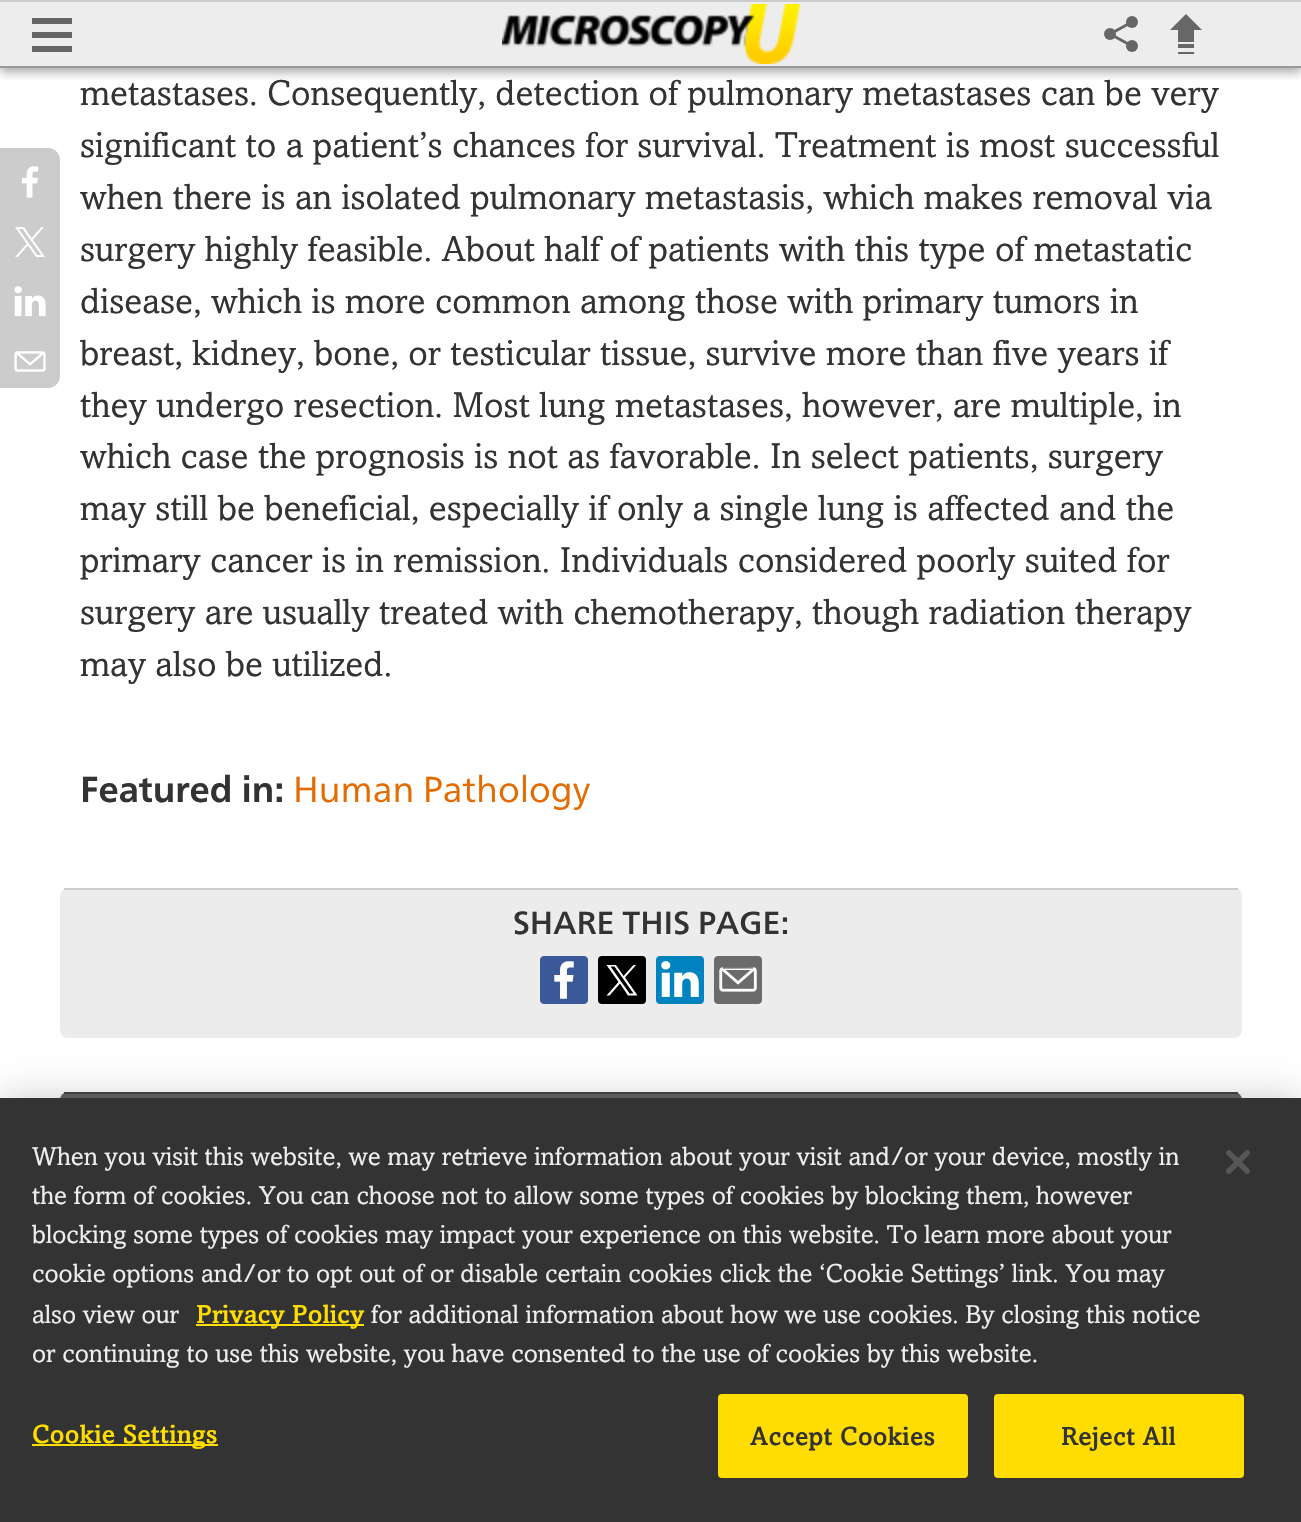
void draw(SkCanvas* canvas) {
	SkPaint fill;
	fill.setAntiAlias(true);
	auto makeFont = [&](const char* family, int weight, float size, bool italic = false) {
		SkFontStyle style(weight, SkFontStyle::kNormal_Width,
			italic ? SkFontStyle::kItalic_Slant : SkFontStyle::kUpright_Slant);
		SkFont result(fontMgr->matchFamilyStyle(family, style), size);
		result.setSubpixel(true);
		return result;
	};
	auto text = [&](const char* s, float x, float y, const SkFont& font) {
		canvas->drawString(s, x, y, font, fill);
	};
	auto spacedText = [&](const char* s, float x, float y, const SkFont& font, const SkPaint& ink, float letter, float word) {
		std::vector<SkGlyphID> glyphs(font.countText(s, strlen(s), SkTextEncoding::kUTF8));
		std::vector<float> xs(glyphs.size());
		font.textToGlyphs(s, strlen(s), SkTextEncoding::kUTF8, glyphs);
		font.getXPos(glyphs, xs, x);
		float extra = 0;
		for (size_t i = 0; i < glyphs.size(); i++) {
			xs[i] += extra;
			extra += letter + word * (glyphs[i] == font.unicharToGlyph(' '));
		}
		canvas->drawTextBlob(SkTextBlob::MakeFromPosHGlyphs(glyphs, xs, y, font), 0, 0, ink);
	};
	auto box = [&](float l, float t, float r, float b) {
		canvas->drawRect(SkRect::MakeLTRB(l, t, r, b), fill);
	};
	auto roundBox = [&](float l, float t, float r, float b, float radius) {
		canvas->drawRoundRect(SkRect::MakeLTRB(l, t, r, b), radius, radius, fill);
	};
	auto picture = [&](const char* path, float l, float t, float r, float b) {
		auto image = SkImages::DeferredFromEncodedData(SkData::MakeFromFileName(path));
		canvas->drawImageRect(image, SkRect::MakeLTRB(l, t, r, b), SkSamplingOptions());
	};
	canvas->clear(0xFFFFFFFF);
	fill.setColor(0xFFEDEDED);
	box(0, 2, 1301, 66);
	canvas->save();
	canvas->clipRect(SkRect::MakeLTRB(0, 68, 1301, 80));
	fill.setColor(0x59000000);
	fill.setMaskFilter(SkMaskFilter::MakeBlur(kNormal_SkBlurStyle, 5));
	canvas->drawRect(SkRect::MakeLTRB(0, 4, 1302, 72), fill);
	fill.setMaskFilter(nullptr);
	canvas->restore();
	fill.setColor(0xFFCCCCCC);
	box(0, 0, 1301, 2);
	fill.setColor(0xFF999999);
	box(0, 66, 1301, 68);
	picture("image0.png", 32, 18, 72, 52);
	picture("image1.png", 502, 4, 800, 64);
	fill.setColor(0xFF666666);
	canvas->drawCircle(1132, 22, 6, fill);
	canvas->drawCircle(1110, 34, 6, fill);
	canvas->drawCircle(1132, 46, 6, fill);
	fill.setStyle(SkPaint::kStroke_Style);
	fill.setStrokeWidth(3);
	canvas->drawPath(SkPathBuilder().moveTo(1110, 34).lineTo(1132, 22).moveTo(1110, 34).lineTo(1132, 46).detach(), fill);
	fill.setStyle(SkPaint::kFill_Style);
	fill.setColor(0xFF676767);
	canvas->drawPath(SkPathBuilder().moveTo(1186, 14).lineTo(1202, 30).lineTo(1170, 30).close().detach(), fill);
	box(1178, 30, 1194, 42);
	box(1178, 44, 1194, 48);
	box(1178, 52, 1194, 54);
	fill.setColor(0xFFCCCCCC);
	canvas->drawPath(SkPathBuilder().moveTo(0, 148).lineTo(48, 148).cubicTo(54.5f, 148, 60, 153.5f, 60, 160).lineTo(60, 376).cubicTo(60, 382.5f, 54.5f, 388, 48, 388).lineTo(0, 388).close().detach(), fill);
	picture("image2.png", 21, 166, 39, 198);
	picture("image3.png", 15, 227, 45, 257);
	picture("image4.png", 14, 286, 46, 317);
	picture("image5.png", 14, 351, 46, 372);
	fill.setColor(0xFFECECEC);
	roundBox(60, 888, 1242, 1038, 8);
	fill.setColor(0xFFCCCCCC);
	box(64, 888, 1238, 890);
	picture("image6.png", 540, 956, 588, 1004);
	fill.setColor(0xFF000000);
	roundBox(598, 956, 646, 1004, 4);
	fill.setColor(0xFFFFFFFF);
	canvas->drawPath(SkPathBuilder().moveTo(625, 977.5f).lineTo(636, 965).lineTo(633.5f, 965).lineTo(623.5f, 976).lineTo(616, 965).lineTo(606.5f, 965).lineTo(618.5f, 982).lineTo(606.5f, 995.5f).lineTo(609.5f, 995.5f).lineTo(620, 983.5f).lineTo(628, 995.5f).lineTo(637.5f, 995.5f).moveTo(610.5f, 966.5f).lineTo(614.5f, 966.5f).lineTo(633.5f, 993.5f).lineTo(629.5f, 993.5f).detach(), fill);
	picture("image7.png", 656, 956, 704, 1004);
	picture("image8.png", 714, 956, 762, 1004);
	fill.setColor(0xFF666666);
	roundBox(60, 1092, 1242, 1276, 8);
	fill.setColor(0xFF444444);
	box(64, 1092, 1238, 1094);
	fill.setColor(0x33000000);
	fill.setMaskFilter(SkMaskFilter::MakeBlur(kNormal_SkBlurStyle, 18));
	canvas->drawRect(SkRect::MakeLTRB(0, 1098, 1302, 1522), fill);
	fill.setMaskFilter(nullptr);
	fill.setColor(0xFF333333);
	box(0, 1098, 1301, 1522);
	fill.setColor(0xFFFFDD00);
	box(196, 1324, 364, 1326);
	box(32, 1444, 218, 1446);
	canvas->drawRoundRect(SkRect::MakeLTRB(719, 1395, 967, 1477), 3, 3, fill);
	fill.setStyle(SkPaint::kStroke_Style);
	fill.setStrokeWidth(2);
	canvas->drawRoundRect(SkRect::MakeLTRB(719, 1395, 967, 1477), 3, 3, fill);
	fill.setStyle(SkPaint::kFill_Style);
	canvas->drawRoundRect(SkRect::MakeLTRB(995, 1395, 1243, 1477), 3, 3, fill);
	fill.setStyle(SkPaint::kStroke_Style);
	canvas->drawRoundRect(SkRect::MakeLTRB(995, 1395, 1243, 1477), 3, 3, fill);
	picture("image9.png", 1226, 1150, 1250, 1174);
	auto font1 = makeFont("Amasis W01", 400, 36);
	fill.setStyle(SkPaint::kFill_Style);
	fill.setColor(0xFF333333);
	text("metastases. Consequently, detection of pulmonary metastases can be very", 80, 105, font1);
	text("significant to a patient’s chances for survival. Treatment is most successful", 80, 157, font1);
	text("when there is an isolated pulmonary metastasis, which makes removal via", 80, 209, font1);
	text("surgery highly feasible. About half of patients with this type of metastatic", 80, 261, font1);
	text("disease, which is more common among those with primary tumors in", 80, 313, font1);
	text("breast, kidney, bone, or testicular tissue, survive more than five years if", 80, 365, font1);
	text("they undergo resection. Most lung metastases, however, are multiple, in", 80, 417, font1);
	text("which case the prognosis is not as favorable. In select patients, surgery", 80, 468, font1);
	text("may still be beneficial, especially if only a single lung is affected and the", 80, 520, font1);
	text("primary cancer is in remission. Individuals considered poorly suited for", 80, 572, font1);
	text("surgery are usually treated with chemotherapy, though radiation therapy", 80, 624, font1);
	text("may also be utilized.", 80, 676, font1);
	auto font2 = makeFont("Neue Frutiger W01", 700, 36);
	text("Featured in:", 80, 802, font2);
	auto font3 = makeFont("Neue Frutiger W01", 400, 36);
	fill.setColor(0xFFE46B00);
	text("Human Pathology", 293, 802, font3);
	auto font4 = makeFont("Neue Frutiger W01", 500, 32);
	fill.setColor(0xFF333333);
	text("SHARE THIS PAGE:", 513, 934, font4);
	auto font5 = makeFont("Amasis W01", 400, 26);
	fill.setColor(0xFFEEEEEE);
	text("When you visit this website, we may retrieve information about your visit and/or your device, mostly in", 32, 1165, font5);
	text("the form of cookies. You can choose not to allow some types of cookies by blocking them, however", 32, 1204, font5);
	text("blocking some types of cookies may impact your experience on this website. To learn more about your", 32, 1243, font5);
	text("cookie options and/or to opt out of or disable certain cookies click the ‘Cookie Settings’ link. You may", 32, 1282, font5);
	text("also view our", 32, 1323, font5);
	auto font6 = makeFont("Amasis W01", 500, 26);
	fill.setColor(0xFFFFDD00);
	text("Privacy Policy", 196, 1323, font6);
	fill.setColor(0xFFEEEEEE);
	text("for additional information about how we use cookies. By closing this notice", 371, 1323, font5);
	text("or continuing to use this website, you have consented to the use of cookies by this website.", 32, 1362, font5);
	fill.setColor(0xFFFFDD00);
	spacedText("Cookie Settings", 32, 1443, font6, fill, 0.25f, 0);
	fill.setColor(0xFF333333);
	spacedText("Accept Cookies", 750, 1445, font6, fill, 0.25f, 0);
	spacedText("Reject All", 1061, 1445, font6, fill, 0.25f, 0);
}
